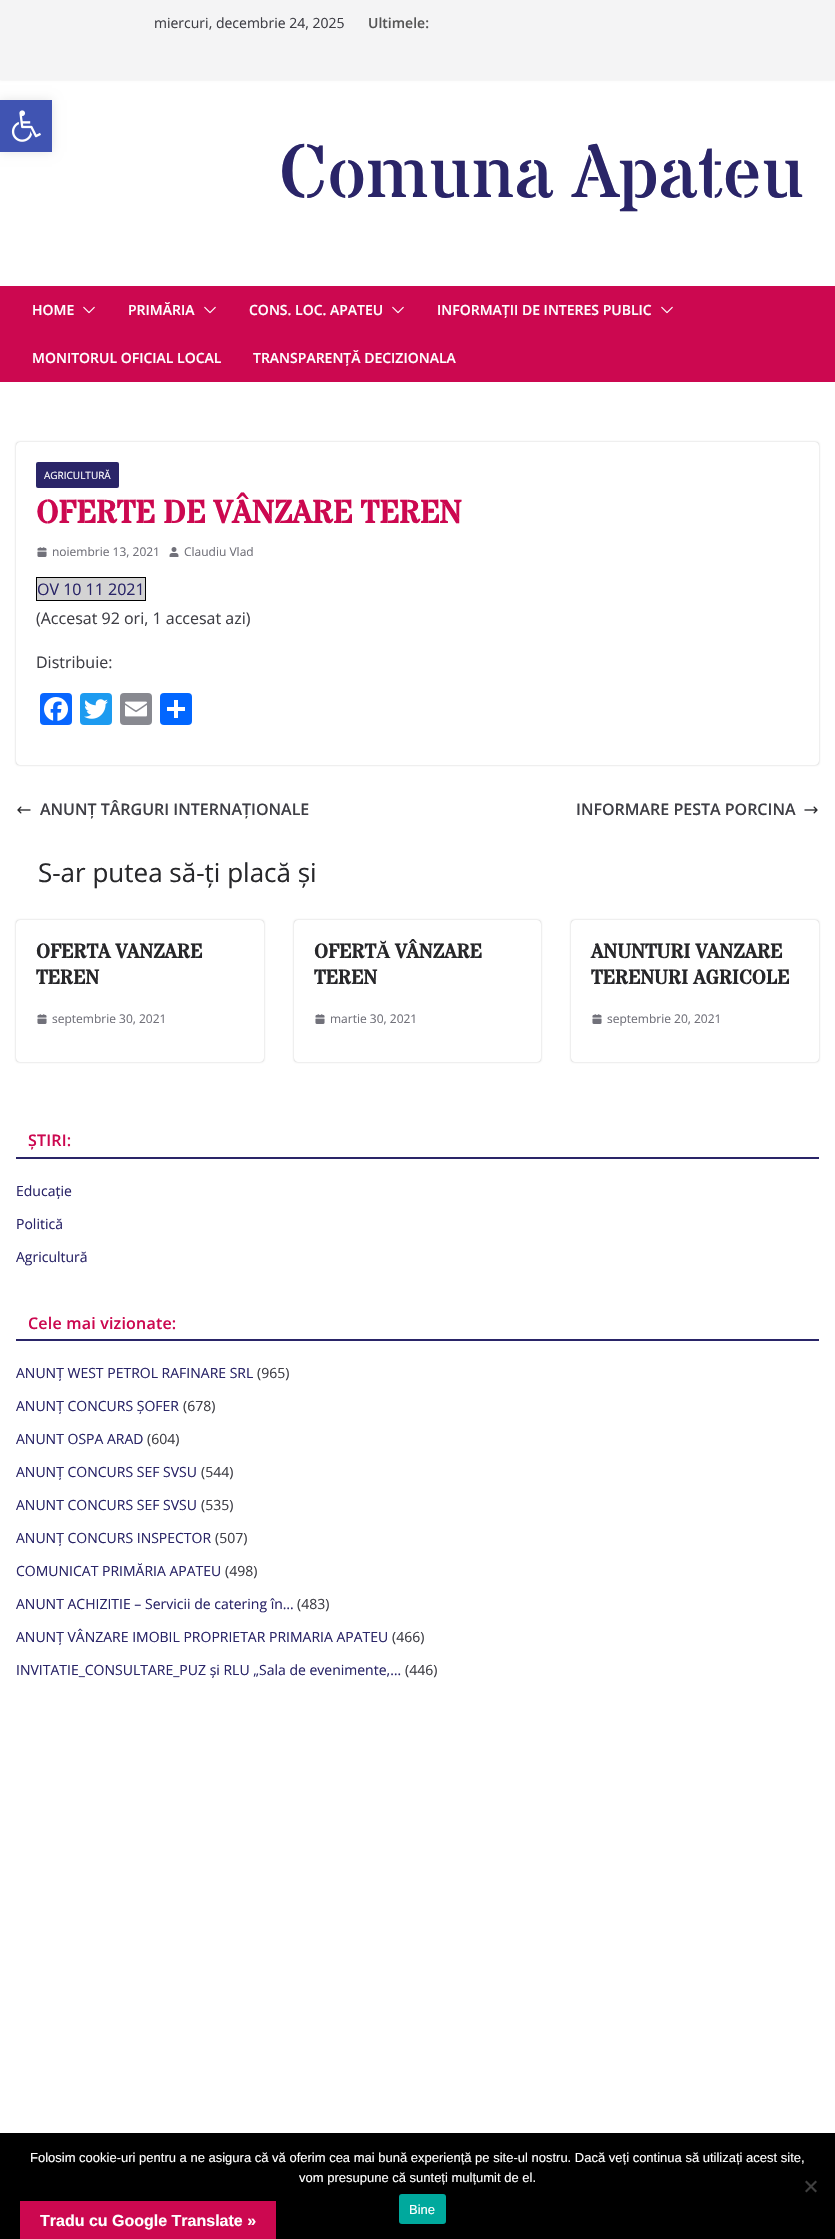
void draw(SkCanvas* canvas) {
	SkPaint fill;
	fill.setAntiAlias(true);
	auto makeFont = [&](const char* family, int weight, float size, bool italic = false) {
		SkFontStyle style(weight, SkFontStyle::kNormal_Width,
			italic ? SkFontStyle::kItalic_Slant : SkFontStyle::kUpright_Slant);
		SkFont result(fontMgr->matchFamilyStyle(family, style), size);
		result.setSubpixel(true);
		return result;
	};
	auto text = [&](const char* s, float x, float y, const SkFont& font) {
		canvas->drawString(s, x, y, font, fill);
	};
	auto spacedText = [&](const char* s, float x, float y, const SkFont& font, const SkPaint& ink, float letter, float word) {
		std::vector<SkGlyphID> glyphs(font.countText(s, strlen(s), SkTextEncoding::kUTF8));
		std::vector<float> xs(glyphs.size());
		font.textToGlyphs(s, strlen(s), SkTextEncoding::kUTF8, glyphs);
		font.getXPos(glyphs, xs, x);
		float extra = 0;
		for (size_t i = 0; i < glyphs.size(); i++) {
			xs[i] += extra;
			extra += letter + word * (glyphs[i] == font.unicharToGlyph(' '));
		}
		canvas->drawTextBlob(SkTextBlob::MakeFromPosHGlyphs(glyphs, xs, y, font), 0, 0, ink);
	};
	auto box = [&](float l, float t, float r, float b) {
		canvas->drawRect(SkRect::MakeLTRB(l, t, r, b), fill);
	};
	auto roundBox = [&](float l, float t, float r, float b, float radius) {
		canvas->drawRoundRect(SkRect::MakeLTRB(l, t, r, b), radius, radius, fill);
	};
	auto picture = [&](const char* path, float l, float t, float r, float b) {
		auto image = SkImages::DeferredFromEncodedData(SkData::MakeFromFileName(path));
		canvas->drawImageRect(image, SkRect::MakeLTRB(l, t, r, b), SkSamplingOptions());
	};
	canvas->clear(0xFFFFFFFF);
	fill.setColor(0x1A000000);
	fill.setMaskFilter(SkMaskFilter::MakeBlur(kNormal_SkBlurStyle, 1));
	canvas->drawRect(SkRect::MakeLTRB(0, 0, 835, 80), fill);
	fill.setMaskFilter(nullptr);
	fill.setColor(0xFFF4F4F5);
	box(0, 0, 835, 80);
	fill.setColor(0xFFCC0850);
	box(0, 286, 835, 382);
	picture("image0.png", 83, 306, 95, 314);
	picture("image0.png", 204, 306, 216, 314);
	picture("image0.png", 392, 306, 404, 314);
	picture("image0.png", 661, 306, 673, 314);
	canvas->save();
	canvas->clipPath(SkPathBuilder(SkPathFillType::kEvenOdd).moveTo(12, 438).lineTo(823, 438).lineTo(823, 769).lineTo(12, 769).close().moveTo(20, 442).lineTo(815, 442).cubicTo(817, 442, 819, 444, 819, 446).lineTo(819, 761).cubicTo(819, 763, 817, 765, 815, 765).lineTo(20, 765).cubicTo(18, 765, 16, 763, 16, 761).lineTo(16, 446).cubicTo(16, 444, 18, 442, 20, 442).close().detach(), true);
	fill.setColor(0x3D000000);
	fill.setMaskFilter(SkMaskFilter::MakeBlur(kNormal_SkBlurStyle, 1));
	canvas->drawRoundRect(SkRect::MakeLTRB(16, 442, 819, 765), 4, 4, fill);
	fill.setMaskFilter(nullptr);
	canvas->restore();
	fill.setColor(0xFF2A2568);
	roundBox(36, 462, 119, 488, 2);
	picture("image1.png", 37, 547, 47, 557);
	picture("image2.png", 169, 547, 179, 557);
	fill.setColor(0xFFD3D3D3);
	canvas->drawRect(SkRect::MakeLTRB(36.5f, 577.5f, 145.5f, 600.5f), fill);
	fill.setStyle(SkPaint::kStroke_Style);
	fill.setStrokeWidth(1);
	fill.setColor(0xFF000000);
	canvas->drawRect(SkRect::MakeLTRB(36.5f, 577.5f, 145.5f, 600.5f), fill);
	fill.setStyle(SkPaint::kFill_Style);
	fill.setColor(0xFF0866FF);
	roundBox(40, 693, 72, 725, 4);
	picture("image3.png", 44, 697, 68, 721);
	fill.setColor(0xFF1D9BF0);
	roundBox(80, 693, 112, 725, 4);
	picture("image4.png", 84, 699, 108, 719);
	fill.setColor(0xFF888990);
	roundBox(120, 693, 152, 725, 4);
	picture("image5.png", 125, 701, 147, 717);
	fill.setColor(0xFF0166FF);
	roundBox(160, 693, 192, 725, 4);
	fill.setColor(0xFFFFFFFF);
	box(174, 700, 178, 718);
	box(167, 707, 185, 711);
	picture("image6.png", 17, 806, 31, 814);
	picture("image7.png", 804, 806, 818, 814);
	canvas->save();
	canvas->clipPath(SkPathBuilder(SkPathFillType::kEvenOdd).moveTo(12, 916).lineTo(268, 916).lineTo(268, 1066).lineTo(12, 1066).close().moveTo(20, 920).lineTo(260, 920).cubicTo(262, 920, 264, 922, 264, 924).lineTo(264, 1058).cubicTo(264, 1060, 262, 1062, 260, 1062).lineTo(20, 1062).cubicTo(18, 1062, 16, 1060, 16, 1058).lineTo(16, 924).cubicTo(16, 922, 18, 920, 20, 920).close().detach(), true);
	fill.setColor(0x3D000000);
	fill.setMaskFilter(SkMaskFilter::MakeBlur(kNormal_SkBlurStyle, 1));
	canvas->drawRoundRect(SkRect::MakeLTRB(16, 920, 264, 1062), 4, 4, fill);
	fill.setMaskFilter(nullptr);
	canvas->restore();
	picture("image1.png", 37, 1014, 47, 1024);
	canvas->save();
	canvas->clipPath(SkPathBuilder(SkPathFillType::kEvenOdd).moveTo(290, 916).lineTo(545, 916).lineTo(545, 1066).lineTo(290, 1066).close().moveTo(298, 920).lineTo(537, 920).cubicTo(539, 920, 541, 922, 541, 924).lineTo(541, 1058).cubicTo(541, 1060, 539, 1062, 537, 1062).lineTo(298, 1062).cubicTo(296, 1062, 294, 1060, 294, 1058).lineTo(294, 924).cubicTo(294, 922, 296, 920, 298, 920).close().detach(), true);
	fill.setMaskFilter(SkMaskFilter::MakeBlur(kNormal_SkBlurStyle, 1));
	canvas->drawRoundRect(SkRect::MakeLTRB(294, 920, 541, 1062), 4, 4, fill);
	fill.setMaskFilter(nullptr);
	canvas->restore();
	picture("image1.png", 315, 1014, 325, 1024);
	canvas->save();
	canvas->clipPath(SkPathBuilder(SkPathFillType::kEvenOdd).moveTo(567, 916).lineTo(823, 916).lineTo(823, 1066).lineTo(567, 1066).close().moveTo(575, 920).lineTo(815, 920).cubicTo(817, 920, 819, 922, 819, 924).lineTo(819, 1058).cubicTo(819, 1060, 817, 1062, 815, 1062).lineTo(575, 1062).cubicTo(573, 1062, 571, 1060, 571, 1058).lineTo(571, 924).cubicTo(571, 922, 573, 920, 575, 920).close().detach(), true);
	fill.setMaskFilter(SkMaskFilter::MakeBlur(kNormal_SkBlurStyle, 1));
	canvas->drawRoundRect(SkRect::MakeLTRB(571, 920, 819, 1062), 4, 4, fill);
	fill.setMaskFilter(nullptr);
	canvas->restore();
	picture("image1.png", 592, 1014, 602, 1024);
	fill.setColor(0xFF2A2568);
	box(16, 1157, 819, 1159);
	box(16, 1339, 819, 1341);
	fill.setColor(0x1A000000);
	fill.setMaskFilter(SkMaskFilter::MakeBlur(kNormal_SkBlurStyle, 5));
	canvas->drawRect(SkRect::MakeLTRB(0, 100, 52, 152), fill);
	fill.setMaskFilter(nullptr);
	fill.setColor(0xFF4054B2);
	box(0, 100, 52, 152);
	picture("image8.png", 11, 110, 41, 142);
	fill.setColor(0xFF000000);
	box(0, 2133, 835, 2239);
	fill.setColor(0xFF404040);
	canvas->drawPath(SkPathBuilder().moveTo(815.5f, 2180.5f).lineTo(817, 2182).lineTo(806.5f, 2192.5f).lineTo(805, 2191).close().detach(), fill);
	canvas->drawPath(SkPathBuilder().moveTo(805, 2182).lineTo(806.5f, 2180.5f).lineTo(817, 2191).lineTo(815.5f, 2192.5f).close().detach(), fill);
	fill.setColor(0xFF00A99D);
	roundBox(399, 2194, 446, 2224, 3);
	fill.setColor(0xFFCC0850);
	box(20, 2201, 276, 2239);
	auto font1 = makeFont("Open Sans", 400, 14);
	fill.setColor(0xFF3F3F46);
	text("miercuri, decembrie 24, 2025", 154, 28, font1);
	auto font2 = makeFont("Open Sans", 600, 14);
	fill.setColor(0xFF555555);
	text("Ultimele:", 368, 28, font2);
	auto font3 = makeFont("Stardos Stencil", 400, 75);
	fill.setColor(0xFF2A2568);
	text("Comuna Apateu", 279, 197, font3);
	fill.setColor(0xFFFFFFFF);
	text("HOME", 32, 315, font2);
	text("PRIMĂRIA", 128, 315, font2);
	text("CONS. LOC. APATEU", 249, 315, font2);
	text("INFORMAȚII DE INTERES PUBLIC", 437, 315, font2);
	text("MONITORUL OFICIAL LOCAL", 32, 363, font2);
	text("TRANSPARENȚĂ DECIZIONALA", 253, 363, font2);
	auto font4 = makeFont("Open Sans", 400, 10);
	text("AGRICULTURĂ", 44, 479, font4);
	auto font5 = makeFont("Stardos Stencil", 700, 32);
	fill.setColor(0xFFCC0850);
	text("OFERTE DE VÂNZARE TEREN", 36, 523, font5);
	auto font6 = makeFont("Open Sans", 400, 12);
	fill.setColor(0xFF71717A);
	text("noiembrie 13, 2021", 52, 556, font6);
	text("Claudiu Vlad", 184, 556, font6);
	auto font7 = makeFont("Open Sans", 400, 16);
	fill.setColor(0xFF2A2568);
	text("OV 10 11 2021", 37, 595, font7);
	fill.setColor(0xFF3F3F46);
	text("(Accesat 92 ori, 1 accesat azi)", 36, 624, font7);
	text("Distribuie:", 36, 668, font7);
	auto font8 = makeFont("Open Sans", 600, 16);
	text("ANUNȚ TÂRGURI INTERNAȚIONALE", 40, 815, font8);
	text("INFORMARE PESTA PORCINA", 576, 815, font8);
	auto font9 = makeFont("Open Sans", 400, 26);
	fill.setColor(0xFF27272A);
	text("S-ar putea să-ți placă și", 38, 882, font9);
	auto font10 = makeFont("Stardos Stencil", 700, 20);
	text("OFERTA VANZARE", 36, 958, font10);
	text("TEREN", 36, 984, font10);
	fill.setColor(0xFF71717A);
	text("septembrie 30, 2021", 52, 1023, font6);
	fill.setColor(0xFF27272A);
	text("OFERT", 314, 958, font10);
	auto font11 = makeFont("Liberation Serif", 700, 20);
	text("Ă", 376, 958, font11);
	text("VÂNZARE", 395, 958, font10);
	text("TEREN", 314, 984, font10);
	fill.setColor(0xFF71717A);
	text("martie 30, 2021", 330, 1023, font6);
	fill.setColor(0xFF27272A);
	text("ANUNTURI VANZARE", 591, 958, font10);
	text("TERENURI AGRICOLE", 591, 984, font10);
	fill.setColor(0xFF71717A);
	text("septembrie 20, 2021", 607, 1023, font6);
	fill.setColor(0xFFCC0850);
	spacedText("ȘTIRI:", 28, 1146, font8, fill, 0.2f, 0);
	fill.setColor(0xFF2A2568);
	text("Educație", 16, 1196, font1);
	text("Politică", 16, 1229, font1);
	text("Agricultură", 16, 1262, font1);
	fill.setColor(0xFFCC0850);
	spacedText("Cele mai vizionate:", 28, 1329, font8, fill, 0.2f, 0);
	fill.setColor(0xFF2A2568);
	text("ANUNȚ WEST PETROL RAFINARE SRL", 16, 1378, font1);
	fill.setColor(0xFF3F3F46);
	text("(965)", 257, 1378, font1);
	fill.setColor(0xFF2A2568);
	text("ANUNȚ CONCURS ȘOFER", 16, 1411, font1);
	fill.setColor(0xFF3F3F46);
	text("(678)", 183, 1411, font1);
	fill.setColor(0xFF2A2568);
	text("ANUNT OSPA ARAD", 16, 1444, font1);
	fill.setColor(0xFF3F3F46);
	text("(604)", 147, 1444, font1);
	fill.setColor(0xFF2A2568);
	text("ANUNȚ CONCURS SEF SVSU", 16, 1477, font1);
	fill.setColor(0xFF3F3F46);
	text("(544)", 201, 1477, font1);
	fill.setColor(0xFF2A2568);
	text("ANUNT CONCURS SEF SVSU", 16, 1510, font1);
	fill.setColor(0xFF3F3F46);
	text("(535)", 201, 1510, font1);
	fill.setColor(0xFF2A2568);
	text("ANUNȚ CONCURS INSPECTOR", 16, 1543, font1);
	fill.setColor(0xFF3F3F46);
	text("(507)", 215, 1543, font1);
	fill.setColor(0xFF2A2568);
	text("COMUNICAT PRIMĂRIA APATEU", 16, 1576, font1);
	fill.setColor(0xFF3F3F46);
	text("(498)", 225, 1576, font1);
	fill.setColor(0xFF2A2568);
	text("ANUNT ACHIZITIE – Servicii de catering în…", 16, 1609, font1);
	fill.setColor(0xFF3F3F46);
	text("(483)", 297, 1609, font1);
	fill.setColor(0xFF2A2568);
	text("ANUNȚ VÂNZARE IMOBIL PROPRIETAR PRIMARIA APATEU", 16, 1642, font1);
	fill.setColor(0xFF3F3F46);
	text("(466)", 392, 1642, font1);
	fill.setColor(0xFF2A2568);
	text("INVITATIE_CONSULTARE_PUZ și RLU „Sala de evenimente,…", 16, 1675, font1);
	fill.setColor(0xFF3F3F46);
	text("(446)", 405, 1675, font1);
	auto font12 = makeFont("Liberation Sans", 400, 13);
	fill.setColor(0xFFFFFFFF);
	text("Folosim cookie-uri pentru a ne asigura că vă oferim cea mai bună experiență pe site-ul nostru. Dacă veți continua să utilizați acest site,", 30, 2162, font12);
	text("vom presupune că sunteți mulțumit de el.", 299, 2182, font12);
	text("Bine", 409, 2214, font12);
	auto font13 = makeFont("Liberation Sans", 700, 16);
	text("Tradu cu Google Translate »", 40, 2226, font13);
}
